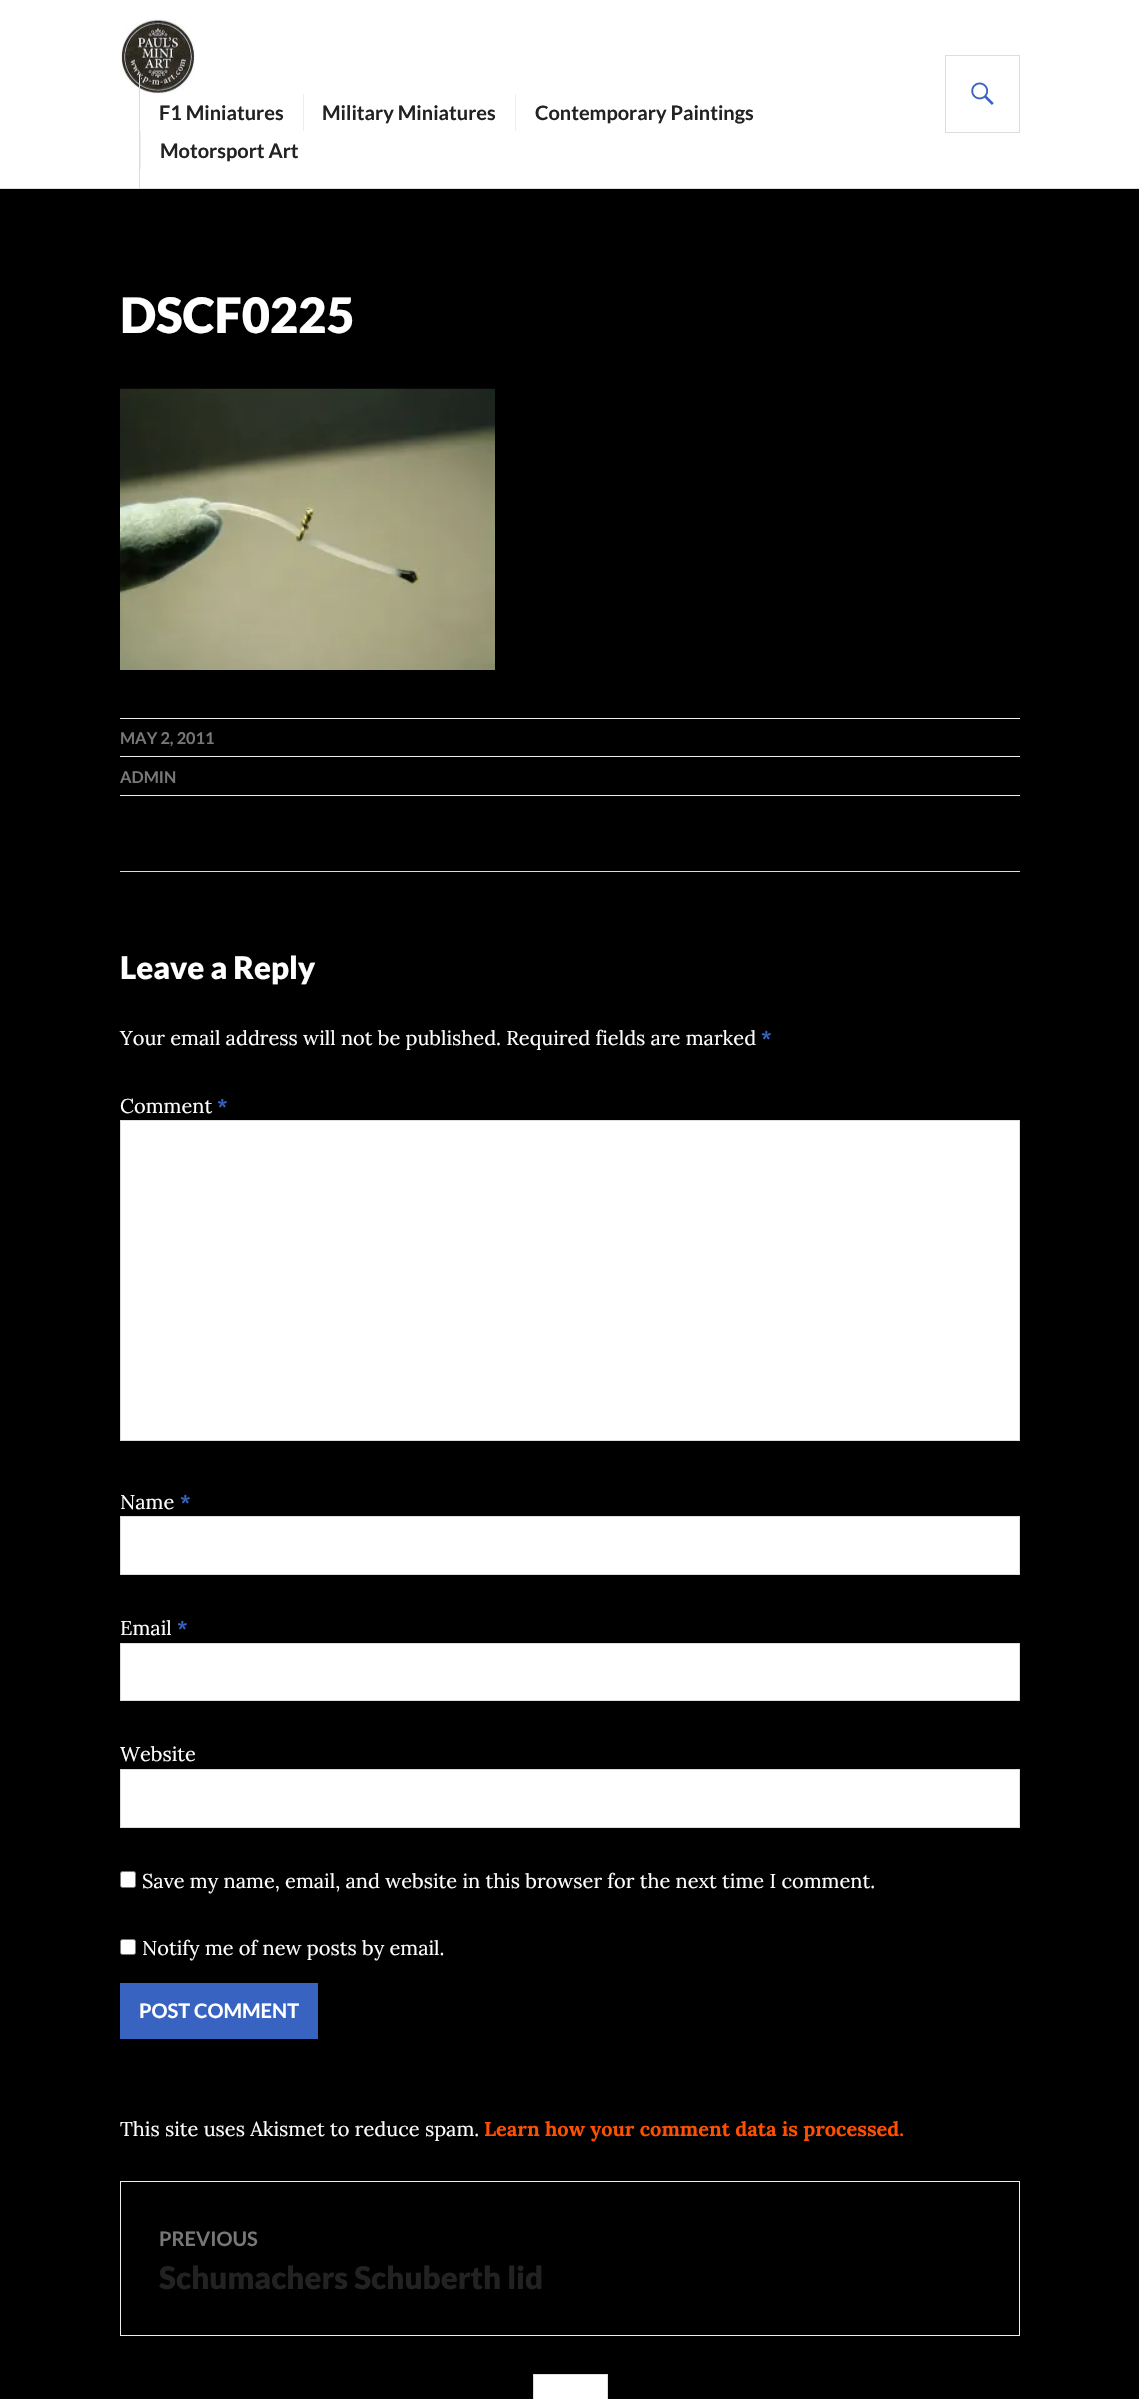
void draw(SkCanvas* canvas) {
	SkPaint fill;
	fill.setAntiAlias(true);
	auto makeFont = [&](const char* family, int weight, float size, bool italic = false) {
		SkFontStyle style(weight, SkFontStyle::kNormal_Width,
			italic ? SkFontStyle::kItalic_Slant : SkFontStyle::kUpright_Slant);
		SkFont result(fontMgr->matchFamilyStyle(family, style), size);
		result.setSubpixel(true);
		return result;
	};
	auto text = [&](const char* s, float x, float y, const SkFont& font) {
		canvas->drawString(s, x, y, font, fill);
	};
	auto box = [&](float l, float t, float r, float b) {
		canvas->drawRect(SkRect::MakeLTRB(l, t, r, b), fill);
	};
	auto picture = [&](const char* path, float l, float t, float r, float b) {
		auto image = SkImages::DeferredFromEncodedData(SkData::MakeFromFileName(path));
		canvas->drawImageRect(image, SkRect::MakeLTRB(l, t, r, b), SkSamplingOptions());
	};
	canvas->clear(0xFF000000);
	fill.setColor(0xFFFFFFFF);
	box(0, 0, 1139, 188);
	fill.setColor(0xFFDDDDDD);
	box(0, 188, 1139, 189);
	picture("image0.png", 120, 19, 195, 94);
	box(139, 75, 140, 188);
	fill.setColor(0xFFEEEEEE);
	box(303, 94, 304, 131);
	box(515, 94, 516, 131);
	box(140, 131, 141, 169);
	fill.setStyle(SkPaint::kStroke_Style);
	fill.setStrokeWidth(1);
	fill.setColor(0xFFDDDDDD);
	canvas->drawRect(SkRect::MakeLTRB(945.5f, 55.5f, 1019.5f, 132.5f), fill);
	picture("image1.png", 971, 82, 994, 105);
	picture("image2.png", 120, 388, 495, 670);
	fill.setStyle(SkPaint::kFill_Style);
	fill.setColor(0xFFEEEEEE);
	box(120, 718, 1020, 719);
	box(120, 756, 1020, 757);
	box(120, 795, 1020, 796);
	fill.setColor(0xFFDDDDDD);
	box(120, 871, 1020, 872);
	fill.setColor(0xFFFFFFFF);
	canvas->drawRect(SkRect::MakeLTRB(120.5f, 1120.5f, 1019.5f, 1440.5f), fill);
	fill.setStyle(SkPaint::kStroke_Style);
	fill.setColor(0xFFDDDDDD);
	canvas->drawRect(SkRect::MakeLTRB(120.5f, 1120.5f, 1019.5f, 1440.5f), fill);
	fill.setStyle(SkPaint::kFill_Style);
	fill.setColor(0xFFFFFFFF);
	canvas->drawRect(SkRect::MakeLTRB(120.5f, 1516.5f, 1019.5f, 1574.5f), fill);
	fill.setStyle(SkPaint::kStroke_Style);
	fill.setColor(0xFFDDDDDD);
	canvas->drawRect(SkRect::MakeLTRB(120.5f, 1516.5f, 1019.5f, 1574.5f), fill);
	fill.setStyle(SkPaint::kFill_Style);
	fill.setColor(0xFFFFFFFF);
	canvas->drawRect(SkRect::MakeLTRB(120.5f, 1643.5f, 1019.5f, 1700.5f), fill);
	fill.setStyle(SkPaint::kStroke_Style);
	fill.setColor(0xFFDDDDDD);
	canvas->drawRect(SkRect::MakeLTRB(120.5f, 1643.5f, 1019.5f, 1700.5f), fill);
	fill.setStyle(SkPaint::kFill_Style);
	fill.setColor(0xFFFFFFFF);
	canvas->drawRect(SkRect::MakeLTRB(120.5f, 1769.5f, 1019.5f, 1827.5f), fill);
	fill.setStyle(SkPaint::kStroke_Style);
	fill.setColor(0xFFDDDDDD);
	canvas->drawRect(SkRect::MakeLTRB(120.5f, 1769.5f, 1019.5f, 1827.5f), fill);
	fill.setStyle(SkPaint::kFill_Style);
	fill.setColor(0xFFFFFFFF);
	canvas->drawRoundRect(SkRect::MakeLTRB(120.5f, 1871.5f, 135.5f, 1887.5f), 2, 2, fill);
	fill.setStyle(SkPaint::kStroke_Style);
	fill.setColor(0xFF767676);
	canvas->drawRoundRect(SkRect::MakeLTRB(120.5f, 1871.5f, 135.5f, 1887.5f), 2, 2, fill);
	fill.setStyle(SkPaint::kFill_Style);
	fill.setColor(0xFFFFFFFF);
	canvas->drawRoundRect(SkRect::MakeLTRB(120.5f, 1939.5f, 135.5f, 1954.5f), 2, 2, fill);
	fill.setStyle(SkPaint::kStroke_Style);
	fill.setColor(0xFF767676);
	canvas->drawRoundRect(SkRect::MakeLTRB(120.5f, 1939.5f, 135.5f, 1954.5f), 2, 2, fill);
	fill.setStyle(SkPaint::kFill_Style);
	fill.setColor(0xFF3863C1);
	box(120, 1983, 318, 2039);
	fill.setStyle(SkPaint::kStroke_Style);
	fill.setColor(0xFFEEEEEE);
	canvas->drawRect(SkRect::MakeLTRB(120.5f, 2181.5f, 1019.5f, 2335.5f), fill);
	fill.setStyle(SkPaint::kFill_Style);
	fill.setColor(0xFFFFFFFF);
	canvas->drawRect(SkRect::MakeLTRB(533.5f, 2374.5f, 607.5f, 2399.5f), fill);
	fill.setStyle(SkPaint::kStroke_Style);
	fill.setColor(0xFFDDDDDD);
	canvas->drawRect(SkRect::MakeLTRB(533.5f, 2374.5f, 607.5f, 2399.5f), fill);
	auto font1 = makeFont("Lato", 700, 20);
	fill.setStyle(SkPaint::kFill_Style);
	fill.setColor(0xFF222222);
	text("F1 Miniatures", 159, 120, font1);
	text("Military Miniatures", 322, 120, font1);
	text("Contemporary Paintings", 535, 120, font1);
	text("Motorsport Art", 160, 158, font1);
	auto font2 = makeFont("Lato", 900, 48.75f);
	fill.setColor(0xFFFFFFFF);
	text("DSCF0225", 120, 333, font2);
	auto font3 = makeFont("Lato", 700, 16.25f);
	fill.setColor(0xFF777777);
	text("MAY 2, 2011", 120, 744, font3);
	text("ADMIN", 120, 783, font3);
	auto font4 = makeFont("Lato", 900, 31.25f);
	fill.setColor(0xFFFFFFFF);
	text("Leave a Reply", 120, 979, font4);
	auto font5 = makeFont("Lora", 400, 20);
	text("Your email address will not be published. Required fields are marked", 120, 1045, font5);
	auto font6 = makeFont("Lora", 700, 20);
	fill.setColor(0xFF3863C1);
	text("*", 761, 1045, font6);
	fill.setColor(0xFFFFFFFF);
	text("Comment", 120, 1113, font5);
	fill.setColor(0xFF3863C1);
	text("*", 217, 1113, font6);
	fill.setColor(0xFFFFFFFF);
	text("Name", 120, 1509, font5);
	fill.setColor(0xFF3863C1);
	text("*", 180, 1509, font6);
	fill.setColor(0xFFFFFFFF);
	text("Email", 120, 1635, font5);
	fill.setColor(0xFF3863C1);
	text("*", 177, 1635, font6);
	fill.setColor(0xFFFFFFFF);
	text("Website", 120, 1761, font5);
	text("Save my name, email, and website in this browser for the next time I comment.", 142, 1888, font5);
	text("Notify me of new posts by email.", 142, 1955, font5);
	text("POST COMMENT", 139, 2018, font1);
	text("This site uses Akismet to reduce spam.", 120, 2136, font5);
	fill.setColor(0xFFFF4F00);
	text("Learn how your comment data is processed.", 484, 2136, font6);
	fill.setColor(0xFF777777);
	text("PREVIOUS", 159, 2246, font1);
	fill.setColor(0xFF222222);
	text("Schumachers Schuberth lid", 159, 2289, font4);
}
